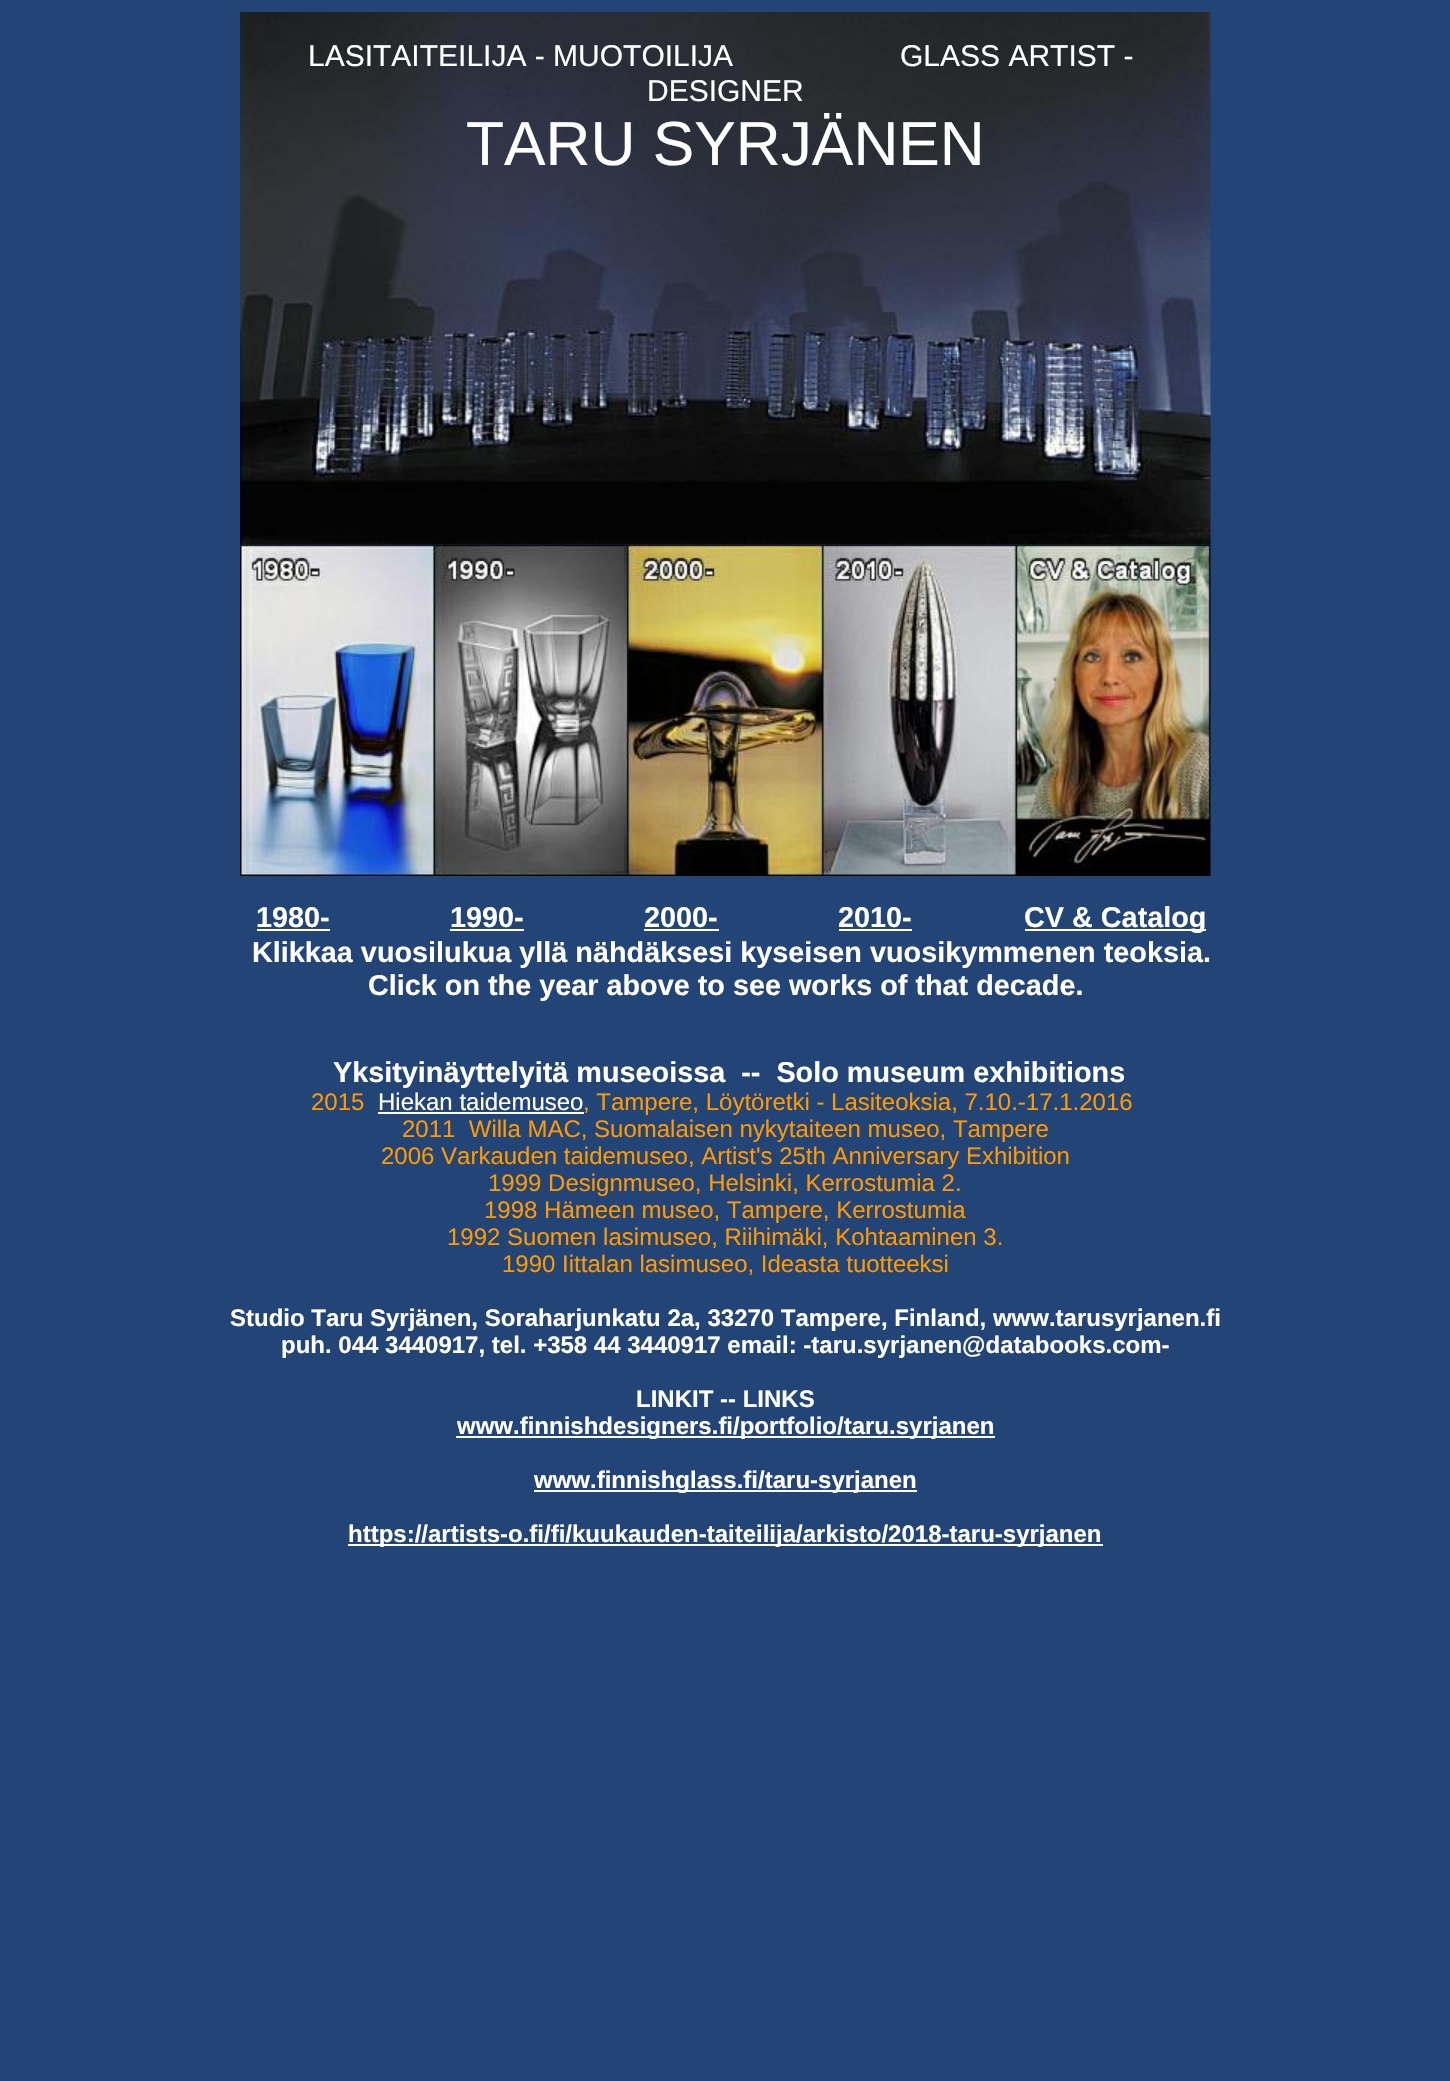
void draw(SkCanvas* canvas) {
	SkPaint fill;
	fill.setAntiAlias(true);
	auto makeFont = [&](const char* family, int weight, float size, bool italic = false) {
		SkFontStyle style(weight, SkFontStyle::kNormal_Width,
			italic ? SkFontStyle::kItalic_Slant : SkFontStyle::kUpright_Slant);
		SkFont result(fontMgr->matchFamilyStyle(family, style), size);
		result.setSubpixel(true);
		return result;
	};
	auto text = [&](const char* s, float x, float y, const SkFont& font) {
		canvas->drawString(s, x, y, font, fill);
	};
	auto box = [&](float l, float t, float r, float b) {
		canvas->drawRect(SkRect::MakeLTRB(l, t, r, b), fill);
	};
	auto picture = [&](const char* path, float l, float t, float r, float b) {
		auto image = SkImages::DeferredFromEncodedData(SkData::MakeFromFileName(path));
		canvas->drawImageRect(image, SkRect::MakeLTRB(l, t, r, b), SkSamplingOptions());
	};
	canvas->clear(0xFF224477);
	picture("image0.png", 240, 12, 1211, 545);
	picture("image1.png", 240, 544, 1211, 876);
	fill.setColor(0xFFFFFFFF);
	box(257, 929, 330, 931);
	box(450, 929, 524, 931);
	box(644, 929, 719, 931);
	box(839, 929, 912, 931);
	box(1025, 929, 1206, 931);
	box(378, 1112, 584, 1114);
	box(456, 1436, 995, 1438);
	box(534, 1490, 917, 1492);
	box(348, 1544, 1103, 1546);
	auto font1 = makeFont("Liberation Sans", 400, 30);
	text("LASITAITEILIJA - MUOTOILIJA", 308, 66, font1);
	text("GLASS ARTIST -", 900, 66, font1);
	text("DESIGNER", 647, 101, font1);
	auto font2 = makeFont("Liberation Sans", 400, 62.25f);
	text("TARU SYRJÄNEN", 466, 165, font2);
	auto font3 = makeFont("Liberation Sans", 700, 28.8f);
	text("1980-", 256, 927, font3);
	text("1990-", 450, 927, font3);
	text("2000-", 644, 927, font3);
	text("2010-", 838, 927, font3);
	text("CV & Catalog", 1024, 927, font3);
	text("Klikkaa vuosilukua yllä nähdäksesi kyseisen", 252, 962, font3);
	text("vuosikymmenen teoksia.", 870, 962, font3);
	text("Click on the year above to see works of that decade.", 368, 995, font3);
	text("Yksityinäyttelyitä museoissa  --  Solo museum exhibitions", 333, 1082, font3);
	auto font4 = makeFont("Liberation Sans", 400, 24);
	fill.setColor(0xFFFF9900);
	text("2015", 311, 1110, font4);
	fill.setColor(0xFFFFFFFF);
	text("Hiekan taidemuseo", 378, 1110, font4);
	fill.setColor(0xFFFF9900);
	text(", Tampere, Löytöretki - Lasiteoksia, 7.10.-17.1.2016", 583, 1110, font4);
	text("2011  Willa MAC, Suomalaisen nykytaiteen museo, Tampere", 402, 1137, font4);
	text("2006 Varkauden taidemuseo, Artist's 25th Anniversary Exhibition", 381, 1164, font4);
	text("1999 Designmuseo, Helsinki, Kerrostumia 2.", 488, 1191, font4);
	text("1998 Hämeen museo, Tampere, Kerrostumia", 484, 1218, font4);
	text("1992 Suomen lasimuseo, Riihimäki, Kohtaaminen 3.", 447, 1245, font4);
	text("1990 Iittalan lasimuseo, Ideasta tuotteeksi", 502, 1272, font4);
	auto font5 = makeFont("Liberation Sans", 700, 24);
	fill.setColor(0xFFFFFFFF);
	text("Studio Taru Syrjänen, Soraharjunkatu 2a, 33270 Tampere, Finland, www.tarusyrjanen.fi", 230, 1326, font5);
	text("puh. 044 3440917, tel. +358 44 3440917 email: -taru.syrjanen@databooks.com-", 281, 1353, font5);
	text("LINKIT -- LINKS", 636, 1407, font5);
	text("www.finnishdesigners.fi/portfolio/taru.syrjanen", 457, 1434, font5);
	text("www.finnishglass.fi/taru-syrjanen", 534, 1488, font5);
	text("https://artists-o.fi/fi/kuukauden-taiteilija/arkisto/2018-taru-syrjanen", 348, 1542, font5);
}
